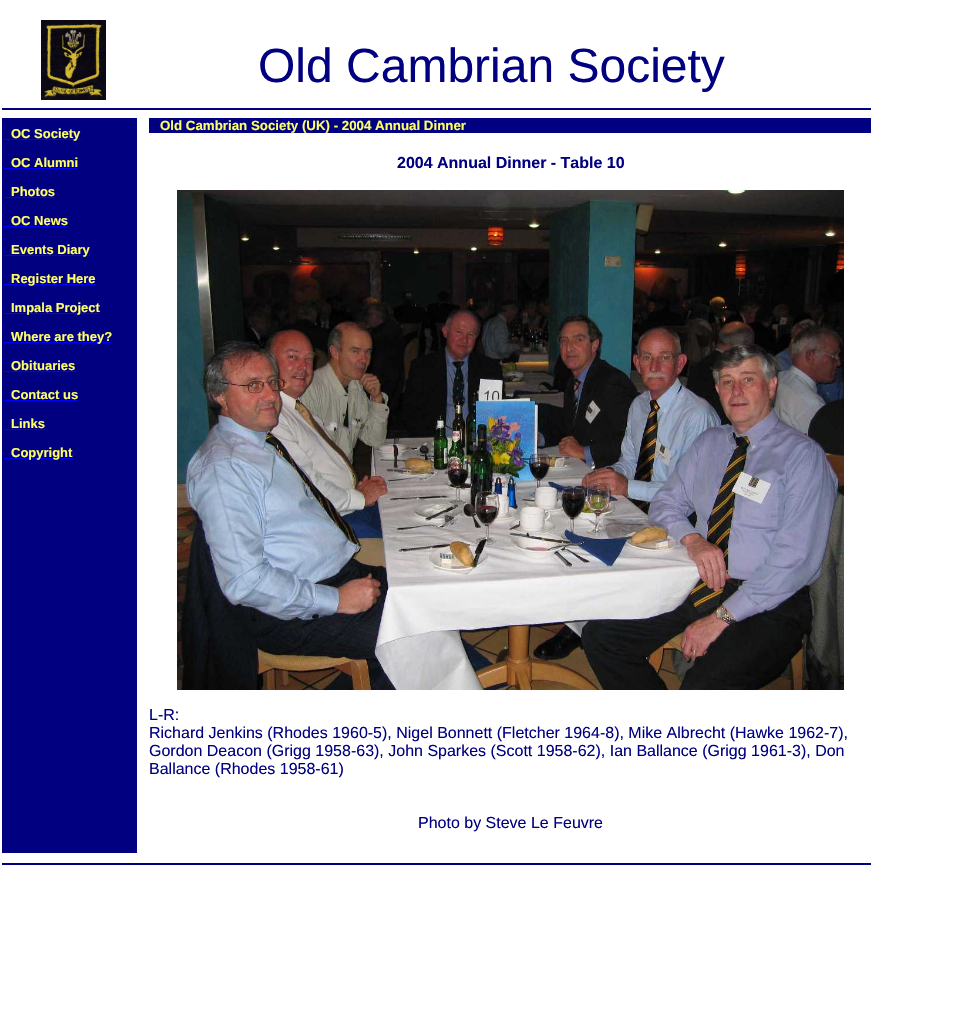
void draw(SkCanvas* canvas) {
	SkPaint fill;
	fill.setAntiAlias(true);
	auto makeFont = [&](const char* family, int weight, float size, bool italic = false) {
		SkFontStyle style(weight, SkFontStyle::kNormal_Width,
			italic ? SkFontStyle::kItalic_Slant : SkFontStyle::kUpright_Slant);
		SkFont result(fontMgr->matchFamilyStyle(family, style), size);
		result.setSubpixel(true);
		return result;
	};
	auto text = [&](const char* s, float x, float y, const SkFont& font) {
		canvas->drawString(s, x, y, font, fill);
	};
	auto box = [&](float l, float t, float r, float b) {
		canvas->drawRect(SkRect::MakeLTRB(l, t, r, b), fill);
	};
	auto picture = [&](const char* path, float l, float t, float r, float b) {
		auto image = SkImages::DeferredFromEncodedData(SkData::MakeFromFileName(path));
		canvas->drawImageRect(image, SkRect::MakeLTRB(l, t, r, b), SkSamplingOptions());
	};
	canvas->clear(0xFFFFFFFF);
	picture("image0.png", 41, 20, 106, 100);
	fill.setColor(0xFF000080);
	box(2, 108, 871, 110);
	box(2, 118, 137, 853);
	fill.setColor(0xFF0000FF);
	box(4, 139, 81, 140);
	box(4, 168, 78, 169);
	box(4, 197, 55, 198);
	box(4, 226, 68, 227);
	box(4, 255, 90, 256);
	box(4, 284, 96, 285);
	box(4, 313, 100, 314);
	box(4, 342, 112, 343);
	box(4, 371, 76, 372);
	box(4, 400, 78, 401);
	box(4, 429, 45, 430);
	box(4, 458, 73, 459);
	fill.setColor(0xFF000080);
	box(149, 118, 871, 133);
	picture("image1.png", 177, 190, 844, 690);
	box(2, 863, 871, 865);
	auto font1 = makeFont("Liberation Sans", 400, 48);
	text("Old Cambrian Society", 258, 82, font1);
	auto font2 = makeFont("Liberation Sans", 700, 13);
	fill.setColor(0xFFFFFF66);
	text("OC Society", 11, 138, font2);
	text("OC Alumni", 11, 167, font2);
	text("Photos", 11, 196, font2);
	text("OC News", 11, 225, font2);
	text("Events Diary", 11, 254, font2);
	text("Register Here", 11, 283, font2);
	text("Impala Project", 11, 312, font2);
	text("Where are they?", 11, 341, font2);
	text("Obituaries", 11, 370, font2);
	text("Contact us", 11, 399, font2);
	text("Links", 11, 428, font2);
	text("Copyright", 11, 457, font2);
	auto font3 = makeFont("Liberation Sans", 700, 13.3f);
	text("Old Cambrian Society (UK) - 2004 Annual Dinner", 160, 130, font3);
	auto font4 = makeFont("Liberation Sans", 700, 16);
	fill.setColor(0xFF000080);
	text("2004 Annual Dinner - Table 10", 397, 168, font4);
	auto font5 = makeFont("Liberation Sans", 400, 16);
	text("L-R:", 149, 720, font5);
	text("Richard Jenkins (Rhodes 1960-5), Nigel Bonnett (Fletcher 1964-8), Mike Albrecht (Hawke 1962-7),", 149, 738, font5);
	text("Gordon Deacon (Grigg 1958-63), John Sparkes (Scott 1958-62), Ian Ballance (Grigg 1961-3), Don", 149, 756, font5);
	text("Ballance (Rhodes 1958-61)", 149, 774, font5);
	text("Photo by Steve Le Feuvre", 418, 828, font5);
}
